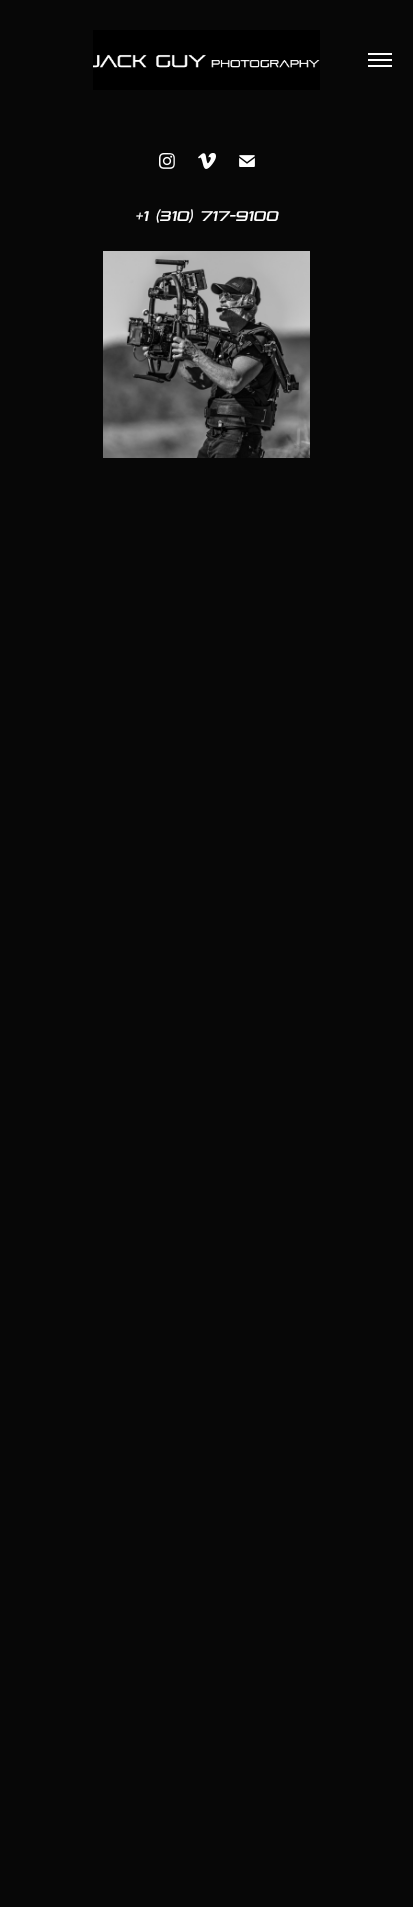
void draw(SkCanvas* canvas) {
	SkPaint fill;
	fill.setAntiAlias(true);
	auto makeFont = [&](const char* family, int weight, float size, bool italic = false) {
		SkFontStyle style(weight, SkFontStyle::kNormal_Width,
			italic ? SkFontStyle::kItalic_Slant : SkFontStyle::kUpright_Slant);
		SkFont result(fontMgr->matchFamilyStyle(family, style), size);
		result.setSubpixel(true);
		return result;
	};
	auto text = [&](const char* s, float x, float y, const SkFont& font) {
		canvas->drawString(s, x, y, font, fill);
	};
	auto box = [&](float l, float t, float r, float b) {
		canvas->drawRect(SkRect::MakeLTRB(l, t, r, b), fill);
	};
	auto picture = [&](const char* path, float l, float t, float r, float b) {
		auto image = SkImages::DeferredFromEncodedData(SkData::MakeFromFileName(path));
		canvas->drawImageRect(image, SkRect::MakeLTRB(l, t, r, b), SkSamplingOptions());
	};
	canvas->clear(0xFF070707);
	picture("image0.png", 93, 30, 320, 90);
	fill.setColor(0xFFFFFFFF);
	box(368, 53, 392, 55);
	box(368, 59, 392, 61);
	box(368, 65, 392, 67);
	picture("image1.png", 159, 153, 175, 169);
	picture("image2.png", 198, 153, 216, 169);
	picture("image3.png", 239, 155, 255, 167);
	picture("image4.png", 103, 251, 310, 458);
	auto font1 = makeFont("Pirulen", 400, 14, true);
	text("+1 (310) 717-9100", 135, 221, font1);
}
